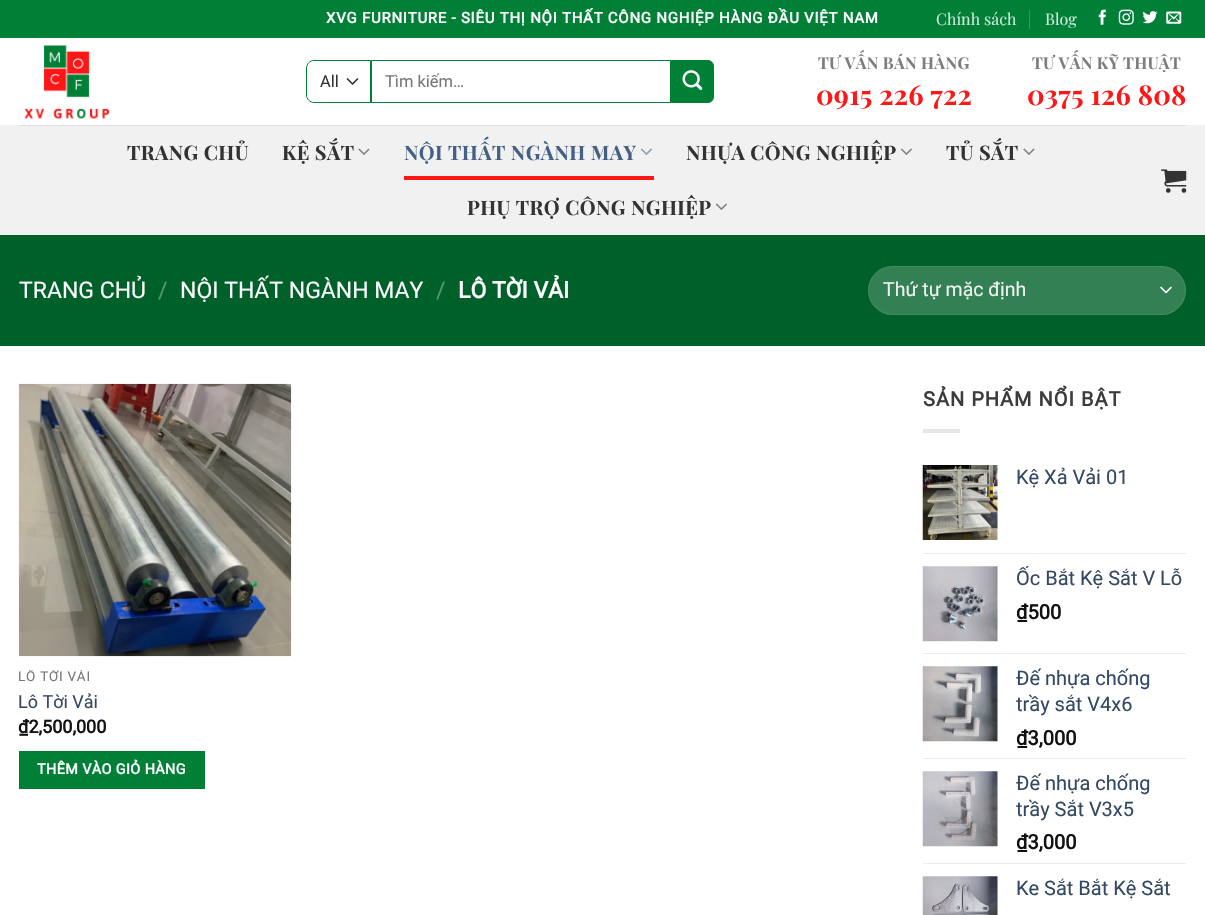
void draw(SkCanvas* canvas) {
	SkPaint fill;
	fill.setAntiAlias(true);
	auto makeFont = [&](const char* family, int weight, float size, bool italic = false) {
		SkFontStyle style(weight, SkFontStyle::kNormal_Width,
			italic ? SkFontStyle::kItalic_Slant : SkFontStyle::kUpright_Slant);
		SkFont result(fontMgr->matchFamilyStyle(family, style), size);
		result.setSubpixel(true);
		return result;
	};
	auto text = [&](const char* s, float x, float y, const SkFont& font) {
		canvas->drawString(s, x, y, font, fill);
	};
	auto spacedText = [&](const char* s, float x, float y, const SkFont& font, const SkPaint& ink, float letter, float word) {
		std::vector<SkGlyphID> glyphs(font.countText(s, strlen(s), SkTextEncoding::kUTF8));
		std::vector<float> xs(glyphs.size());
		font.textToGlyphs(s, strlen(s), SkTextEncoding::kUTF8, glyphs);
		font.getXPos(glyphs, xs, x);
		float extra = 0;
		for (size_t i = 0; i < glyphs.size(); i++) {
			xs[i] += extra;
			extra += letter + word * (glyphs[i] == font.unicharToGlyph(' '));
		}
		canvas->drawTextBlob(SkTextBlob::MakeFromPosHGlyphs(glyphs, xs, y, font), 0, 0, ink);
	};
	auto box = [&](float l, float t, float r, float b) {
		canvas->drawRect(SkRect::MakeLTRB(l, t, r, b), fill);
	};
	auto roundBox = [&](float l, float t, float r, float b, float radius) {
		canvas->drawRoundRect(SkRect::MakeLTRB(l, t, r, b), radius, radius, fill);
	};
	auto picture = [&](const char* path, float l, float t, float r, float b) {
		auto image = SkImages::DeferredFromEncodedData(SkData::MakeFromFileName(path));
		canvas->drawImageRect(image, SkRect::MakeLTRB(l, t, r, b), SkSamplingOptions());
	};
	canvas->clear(0xFFFFFFFF);
	fill.setColor(0xFF008036);
	box(0, 0, 1205, 38);
	fill.setColor(0xFF33995E);
	box(1029, 10, 1030, 29);
	picture("image0.png", 1098, 9, 1106, 25);
	picture("image1.png", 1118, 9, 1134, 25);
	picture("image2.png", 1142, 11, 1158, 24);
	picture("image3.png", 1166, 11, 1182, 24);
	picture("image4.png", 24, 45, 110, 119);
	fill.setStyle(SkPaint::kStroke_Style);
	fill.setStrokeWidth(1.7f);
	fill.setStrokeCap(SkPaint::kRound_Cap);
	fill.setStrokeJoin(SkPaint::kRound_Join);
	fill.setColor(0xFF333333);
	canvas->drawPath(SkPathBuilder().moveTo(347.5f, 79).lineTo(352.5f, 84).lineTo(357.5f, 79).detach(), fill);
	fill.setStrokeWidth(1);
	fill.setStrokeCap(SkPaint::kButt_Cap);
	fill.setStrokeJoin(SkPaint::kMiter_Join);
	fill.setColor(0xFF008036);
	canvas->drawPath(SkPathBuilder().moveTo(314, 60.5f).lineTo(370.5f, 60.5f).lineTo(370.5f, 102.5f).lineTo(314, 102.5f).cubicTo(310, 102.5f, 306.5f, 99, 306.5f, 95).lineTo(306.5f, 68).cubicTo(306.5f, 64, 310, 60.5f, 314, 60.5f).close().detach(), fill);
	canvas->drawRect(SkRect::MakeLTRB(371.5f, 60.5f, 670.5f, 102.5f), fill);
	fill.setStyle(SkPaint::kFill_Style);
	canvas->drawPath(SkPathBuilder().moveTo(671.5f, 60.5f).lineTo(708, 60.5f).cubicTo(711, 60.5f, 713.5f, 63, 713.5f, 66).lineTo(713.5f, 97).cubicTo(713.5f, 100, 711, 102.5f, 708, 102.5f).lineTo(671.5f, 102.5f).close().detach(), fill);
	fill.setStyle(SkPaint::kStroke_Style);
	canvas->drawPath(SkPathBuilder().moveTo(671.5f, 60.5f).lineTo(708, 60.5f).cubicTo(711, 60.5f, 713.5f, 63, 713.5f, 66).lineTo(713.5f, 97).cubicTo(713.5f, 100, 711, 102.5f, 708, 102.5f).lineTo(671.5f, 102.5f).close().detach(), fill);
	picture("image5.png", 682, 70, 703, 90);
	fill.setStyle(SkPaint::kFill_Style);
	fill.setColor(0xFFF1F1F1);
	box(0, 125, 1205, 235);
	fill.setColor(0xFFDFDFDF);
	box(19, 125, 1186, 126);
	picture("image6.png", 358, 148, 370, 155);
	picture("image7.png", 640, 148, 652, 155);
	fill.setColor(0xFFFF1717);
	box(404, 176, 654, 180);
	picture("image8.png", 900, 148, 912, 155);
	picture("image6.png", 1023, 148, 1035, 155);
	picture("image8.png", 715, 203, 727, 210);
	picture("image9.png", 1161, 169, 1187, 193);
	fill.setColor(0xFF006029);
	box(0, 235, 1205, 346);
	fill.setColor(0xFF338054);
	roundBox(868, 266, 1186, 315, 24.5f);
	fill.setStyle(SkPaint::kStroke_Style);
	fill.setStrokeWidth(1.7f);
	fill.setStrokeCap(SkPaint::kRound_Cap);
	fill.setStrokeJoin(SkPaint::kRound_Join);
	fill.setColor(0xFFFFFFFF);
	canvas->drawPath(SkPathBuilder().moveTo(1161, 287.5f).lineTo(1166, 292.5f).lineTo(1171, 287.5f).detach(), fill);
	fill.setStrokeWidth(1);
	fill.setStrokeCap(SkPaint::kButt_Cap);
	fill.setStrokeJoin(SkPaint::kMiter_Join);
	fill.setColor(0x17FFFFFF);
	canvas->drawRoundRect(SkRect::MakeLTRB(868.5f, 266.5f, 1185.5f, 314.5f), 24, 24, fill);
	picture("image10.png", 18, 383, 292, 657);
	fill.setStyle(SkPaint::kFill_Style);
	fill.setColor(0xFF008036);
	canvas->drawRect(SkRect::MakeLTRB(19.5f, 751.5f, 204.5f, 788.5f), fill);
	fill.setStyle(SkPaint::kStroke_Style);
	fill.setColor(0xFF007A33);
	canvas->drawRect(SkRect::MakeLTRB(19.5f, 751.5f, 204.5f, 788.5f), fill);
	fill.setStyle(SkPaint::kFill_Style);
	fill.setColor(0xFFE6E6E6);
	box(923, 429, 960, 433);
	picture("image11.png", 922, 465, 998, 540);
	fill.setColor(0xFFECECEC);
	box(923, 553, 1186, 554);
	picture("image12.png", 922, 566, 998, 642);
	box(923, 653, 1186, 654);
	picture("image13.png", 922, 666, 998, 742);
	box(923, 758, 1186, 759);
	picture("image14.png", 922, 771, 998, 847);
	box(923, 863, 1186, 864);
	picture("image15.png", 922, 876, 998, 915);
	auto font1 = makeFont("Roboto", 700, 15);
	fill.setColor(0xFFFFFFFF);
	spacedText("XVG FURNITURE - SIÊU THỊ NỘI THẤT CÔNG NGHIỆP HÀNG ĐẦU VIỆT NAM", 326, 23, font1, fill, 0.75f, 0);
	auto font2 = makeFont("Playfair Display", 400, 16);
	fill.setColor(0xFFCCE6D7);
	text("Chính sách", 936, 25, font2);
	text("Blog", 1045, 25, font2);
	auto font3 = makeFont("Roboto", 400, 16.5f);
	fill.setColor(0xFF333333);
	text("All", 320, 87, font3);
	fill.setColor(0xFF787676);
	text("Tìm kiếm…", 385, 87, font3);
	auto font4 = makeFont("Playfair Display", 700, 16.25f);
	fill.setColor(0xFF7D7D7D);
	spacedText("TƯ VẤN BÁN HÀNG", 818, 69, font4, fill, 0.25f, 0);
	auto font5 = makeFont("Playfair Display", 700, 27.25f);
	fill.setColor(0xFFFF1717);
	spacedText("0915 226 722", 816, 105, font5, fill, 0.25f, 0);
	fill.setColor(0xFF7D7D7D);
	spacedText("TƯ VẤN KỸ THUẬT", 1032, 69, font4, fill, 0.25f, 0);
	fill.setColor(0xFFFF1717);
	spacedText("0375 126 808", 1027, 105, font5, fill, 0.25f, 0);
	auto font6 = makeFont("Playfair Display", 700, 20);
	fill.setColor(0xFF333333);
	spacedText("TRANG CHỦ", 127, 160, font6, fill, 0.4f, 0);
	spacedText("KỆ SẮT", 282, 160, font6, fill, 0.4f, 0);
	fill.setColor(0xFF446084);
	spacedText("NỘI THẤT NGÀNH MAY", 404, 160, font6, fill, 0.4f, 0);
	fill.setColor(0xFF333333);
	spacedText("NHỰA CÔNG NGHIỆP", 686, 160, font6, fill, 0.4f, 0);
	spacedText("TỦ SẮT", 946, 160, font6, fill, 0.4f, 0);
	spacedText("PHỤ TRỢ CÔNG NGHIỆP", 467, 215, font6, fill, 0.4f, 0);
	auto font7 = makeFont("Roboto", 400, 23);
	fill.setColor(0xFFFFFFFF);
	text("TRANG CHỦ", 19, 298, font7);
	fill.setColor(0xFF599874);
	text("/", 158, 298, font7);
	fill.setColor(0xFFFFFFFF);
	text("NỘI THẤT NGÀNH MAY", 180, 298, font7);
	fill.setColor(0xFF599874);
	text("/", 436, 298, font7);
	auto font8 = makeFont("Roboto", 700, 23);
	fill.setColor(0xFFFFFFFF);
	text("LÔ TỜI VẢI", 458, 298, font8);
	auto font9 = makeFont("Roboto", 400, 19.5f);
	fill.setColor(0xFFF1F1F1);
	text("Thứ tự mặc định", 883, 296, font9);
	canvas->save();
	canvas->clipRect(SkRect::MakeLTRB(19, 670, 291, 686));
	auto font10 = makeFont("Roboto", 400, 13.5f);
	fill.setColor(0xFF787676);
	spacedText("LÔ TỜI VẢI", 18, 681, font10, fill, 0.75f, 0);
	canvas->restore();
	auto font11 = makeFont("Roboto", 400, 18);
	fill.setColor(0xFF334862);
	text("Lô Tời Vải", 18, 708, font11);
	auto font12 = makeFont("Roboto", 700, 18);
	fill.setColor(0xFF111111);
	text("₫2,500,000", 18, 733, font12);
	auto font13 = makeFont("Roboto", 700, 14.4f);
	fill.setColor(0xFFFFFFFF);
	spacedText("THÊM VÀO GIỎ HÀNG", 37, 774, font13, fill, 0.4f, 0);
	auto font14 = makeFont("Roboto", 700, 20);
	fill.setColor(0xFF3E3B3B);
	spacedText("SẢN PHẨM NỔI BẬT", 923, 406, font14, fill, 1, 0);
	auto font15 = makeFont("Roboto", 400, 20);
	fill.setColor(0xFF334862);
	text("Kệ Xả Vải 01", 1016, 484, font15);
	canvas->save();
	canvas->clipRect(SkRect::MakeLTRB(1016, 566, 1186, 593));
	text("Ốc Bắt Kệ Sắt V Lỗ", 1016, 585, font15);
	canvas->restore();
	fill.setColor(0xFF111111);
	text("₫500", 1016, 619, font14);
	fill.setColor(0xFF334862);
	text("Đế nhựa chống", 1016, 685, font15);
	text("trầy sắt V4x6", 1016, 711, font15);
	fill.setColor(0xFF111111);
	text("₫3,000", 1016, 745, font14);
	fill.setColor(0xFF334862);
	text("Đế nhựa chống", 1016, 790, font15);
	text("trầy Sắt V3x5", 1016, 816, font15);
	fill.setColor(0xFF111111);
	text("₫3,000", 1016, 849, font14);
	fill.setColor(0xFF334862);
	text("Ke Sắt Bắt Kệ Sắt", 1016, 895, font15);
}
